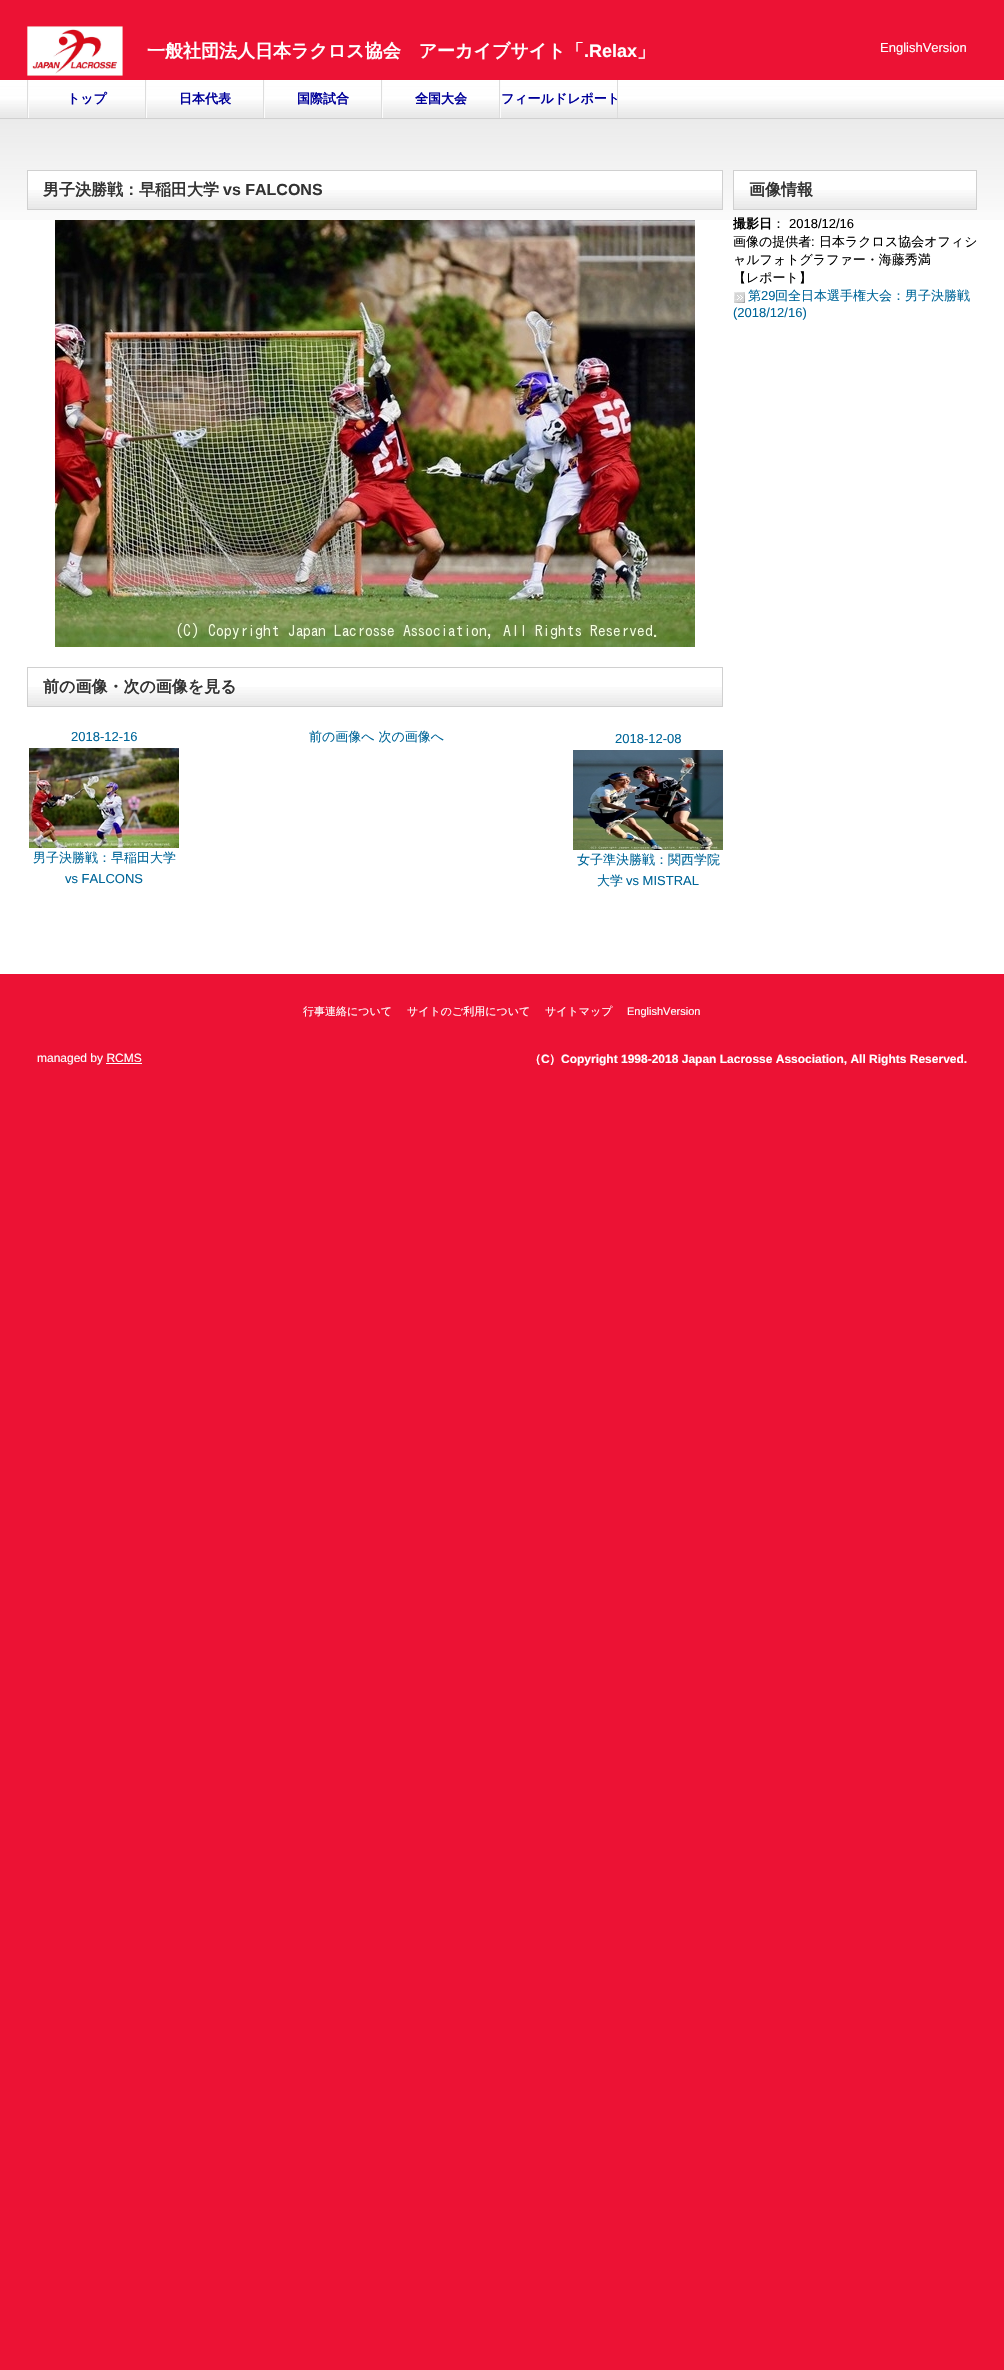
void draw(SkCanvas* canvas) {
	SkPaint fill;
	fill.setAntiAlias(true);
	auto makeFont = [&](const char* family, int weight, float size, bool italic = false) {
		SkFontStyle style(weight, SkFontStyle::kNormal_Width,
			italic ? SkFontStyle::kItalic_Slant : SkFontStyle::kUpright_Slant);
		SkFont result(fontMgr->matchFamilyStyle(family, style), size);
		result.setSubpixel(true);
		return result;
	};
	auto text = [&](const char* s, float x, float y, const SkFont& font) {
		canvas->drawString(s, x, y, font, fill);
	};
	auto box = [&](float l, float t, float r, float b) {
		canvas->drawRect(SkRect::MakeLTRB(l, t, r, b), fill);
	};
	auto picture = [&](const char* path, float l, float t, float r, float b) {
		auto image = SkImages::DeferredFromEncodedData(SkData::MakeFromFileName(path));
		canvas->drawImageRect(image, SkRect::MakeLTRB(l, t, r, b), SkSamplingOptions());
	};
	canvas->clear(0xFFEC1234);
	fill.setColor(0xFFFFFFFF);
	box(0, 220, 1004, 974);
	picture("image0.png", 0, 81, 1004, 220);
	picture("image1.png", 27, 26, 123, 76);
	box(0, 80, 1004, 81);
	fill.setColor(0xFFDDDDDD);
	box(27, 80, 28, 118);
	box(145, 80, 146, 118);
	fill.setColor(0xFFFCFCFC);
	box(28, 80, 29, 118);
	fill.setColor(0xFFDDDDDD);
	box(263, 80, 264, 118);
	fill.setColor(0xFFFCFCFC);
	box(146, 80, 147, 118);
	fill.setColor(0xFFDDDDDD);
	box(381, 80, 382, 118);
	fill.setColor(0xFFFCFCFC);
	box(264, 80, 265, 118);
	fill.setColor(0xFFDDDDDD);
	box(499, 80, 500, 118);
	fill.setColor(0xFFFCFCFC);
	box(382, 80, 383, 118);
	fill.setColor(0xFFDDDDDD);
	box(617, 80, 618, 118);
	fill.setColor(0xFFFCFCFC);
	box(500, 80, 501, 118);
	picture("image2.png", 28, 171, 722, 209);
	fill.setStyle(SkPaint::kStroke_Style);
	fill.setStrokeWidth(1);
	fill.setColor(0xFFD0D0D0);
	canvas->drawRect(SkRect::MakeLTRB(27.5f, 170.5f, 722.5f, 209.5f), fill);
	picture("image3.png", 55, 220, 695, 647);
	picture("image4.png", 28, 687, 722, 706);
	canvas->drawRect(SkRect::MakeLTRB(27.5f, 667.5f, 722.5f, 706.5f), fill);
	picture("image5.png", 29, 748, 179, 848);
	picture("image6.png", 573, 750, 723, 850);
	picture("image7.png", 734, 171, 976, 209);
	canvas->drawRect(SkRect::MakeLTRB(733.5f, 170.5f, 976.5f, 209.5f), fill);
	picture("image8.png", 734, 292, 745, 303);
	fill.setStyle(SkPaint::kFill_Style);
	fill.setColor(0xFFFFFFFF);
	box(106, 1063, 142, 1064);
	auto font1 = makeFont("WenQuanYi Zen Hei", 700, 18);
	text("一般社団法人日本ラクロス協会　アーカイブサイト「", 147, 57, font1);
	auto font2 = makeFont("Liberation Sans", 700, 18);
	text(".Relax", 584, 57, font2);
	text("」", 637, 57, font1);
	auto font3 = makeFont("Liberation Sans", 400, 13);
	text("EnglishVersion", 880, 52, font3);
	auto font4 = makeFont("WenQuanYi Zen Hei", 700, 13);
	fill.setColor(0xFF000099);
	text("トップ", 67, 103, font4);
	text("日本代表", 179, 103, font4);
	text("国際試合", 297, 103, font4);
	text("全国大会", 415, 103, font4);
	text("フィールドレポート", 501, 103, font4);
	auto font5 = makeFont("WenQuanYi Zen Hei", 700, 16);
	fill.setColor(0xFF333333);
	text("男子決勝戦：早稲田大学", 43, 195, font5);
	auto font6 = makeFont("Liberation Sans", 700, 16);
	text("vs FALCONS", 223, 195, font6);
	text("前の画像・次の画像を見る", 43, 692, font5);
	fill.setColor(0xFF006699);
	text("2018-12-16", 71, 741, font3);
	auto font7 = makeFont("WenQuanYi Zen Hei", 500, 13);
	text("男子決勝戦：早稲田大学", 33, 862, font7);
	text("vs FALCONS", 65, 883, font3);
	text("前の画像へ 次の画像へ", 309, 741, font7);
	text("2018-12-08", 615, 743, font3);
	text("女子準決勝戦：関西学院", 577, 864, font7);
	text("大学", 597, 885, font7);
	text("vs MISTRAL", 626, 885, font3);
	fill.setColor(0xFF333333);
	text("画像情報", 749, 195, font5);
	fill.setColor(0xFF000000);
	text("撮影日", 733, 228, font4);
	text("：", 772, 228, font7);
	text("2018/12/16", 789, 228, font3);
	text("画像の提供者", 733, 246, font7);
	text(":", 811, 246, font3);
	text("日本ラクロス協会オフィシ", 819, 246, font7);
	text("ャルフォトグラファー・海藤秀満", 733, 264, font7);
	text("【レポート】", 733, 282, font7);
	fill.setColor(0xFF006699);
	text("第", 748, 300, font7);
	text("29", 761, 300, font3);
	text("回全日本選手権大会：男子決勝戦", 775, 300, font7);
	text("(2018/12/16)", 733, 317, font3);
	auto font8 = makeFont("WenQuanYi Zen Hei", 500, 11);
	fill.setColor(0xFFFFFFFF);
	text("行事連絡について", 303, 1015, font8);
	text("サイトのご利用について", 407, 1015, font8);
	text("サイトマップ", 545, 1015, font8);
	auto font9 = makeFont("Liberation Sans", 400, 11);
	text("EnglishVersion", 627, 1015, font9);
	auto font10 = makeFont("Liberation Sans", 400, 12);
	text("managed by RCMS", 37, 1062, font10);
	auto font11 = makeFont("WenQuanYi Zen Hei", 700, 12);
	text("（", 529, 1063, font11);
	auto font12 = makeFont("Liberation Sans", 700, 12);
	text("C", 541, 1063, font12);
	text("）", 549, 1063, font11);
	text("Copyright 1998-2018 Japan Lacrosse Association, All Rights Reserved.", 561, 1063, font12);
}
